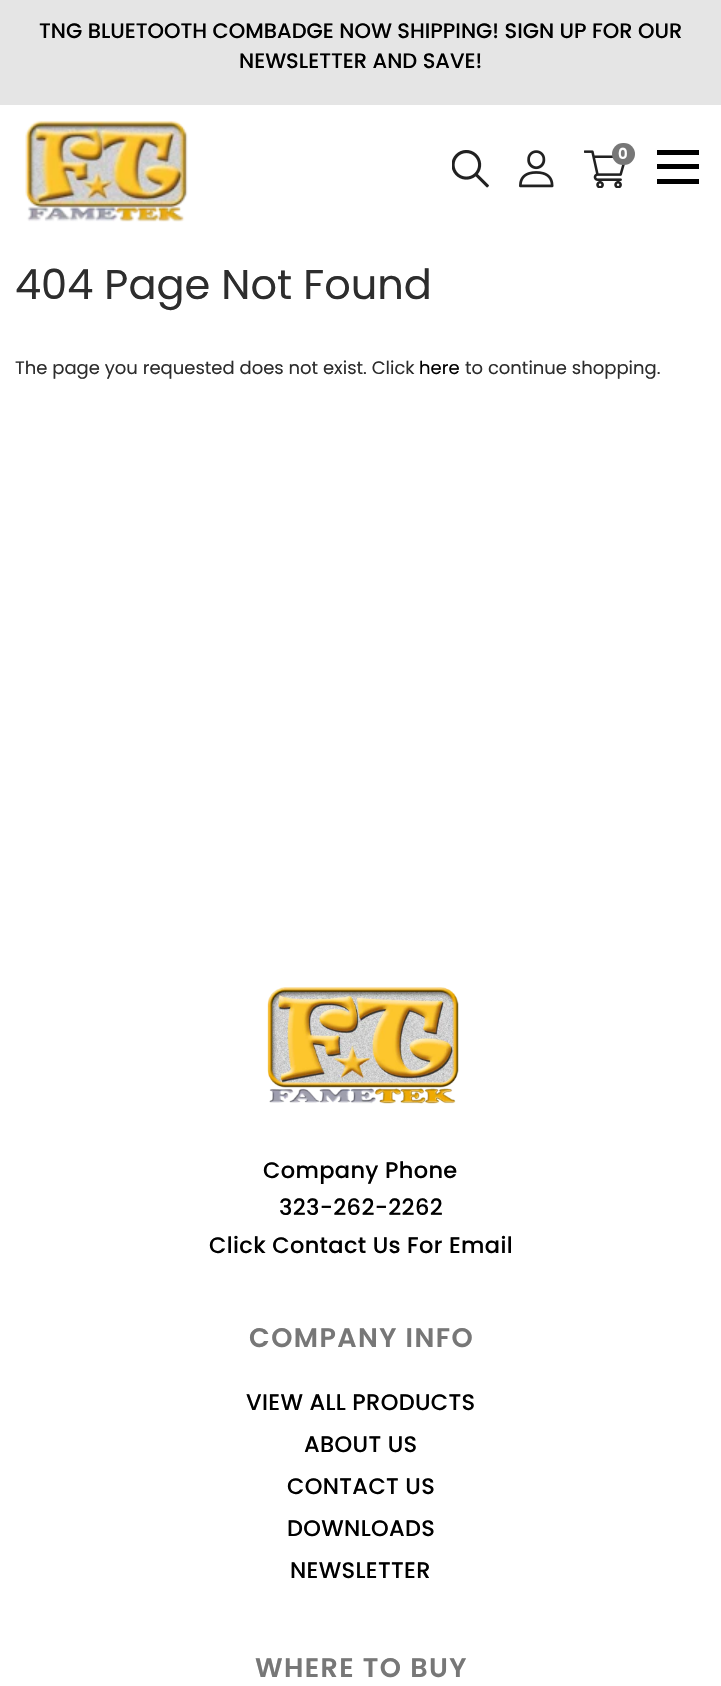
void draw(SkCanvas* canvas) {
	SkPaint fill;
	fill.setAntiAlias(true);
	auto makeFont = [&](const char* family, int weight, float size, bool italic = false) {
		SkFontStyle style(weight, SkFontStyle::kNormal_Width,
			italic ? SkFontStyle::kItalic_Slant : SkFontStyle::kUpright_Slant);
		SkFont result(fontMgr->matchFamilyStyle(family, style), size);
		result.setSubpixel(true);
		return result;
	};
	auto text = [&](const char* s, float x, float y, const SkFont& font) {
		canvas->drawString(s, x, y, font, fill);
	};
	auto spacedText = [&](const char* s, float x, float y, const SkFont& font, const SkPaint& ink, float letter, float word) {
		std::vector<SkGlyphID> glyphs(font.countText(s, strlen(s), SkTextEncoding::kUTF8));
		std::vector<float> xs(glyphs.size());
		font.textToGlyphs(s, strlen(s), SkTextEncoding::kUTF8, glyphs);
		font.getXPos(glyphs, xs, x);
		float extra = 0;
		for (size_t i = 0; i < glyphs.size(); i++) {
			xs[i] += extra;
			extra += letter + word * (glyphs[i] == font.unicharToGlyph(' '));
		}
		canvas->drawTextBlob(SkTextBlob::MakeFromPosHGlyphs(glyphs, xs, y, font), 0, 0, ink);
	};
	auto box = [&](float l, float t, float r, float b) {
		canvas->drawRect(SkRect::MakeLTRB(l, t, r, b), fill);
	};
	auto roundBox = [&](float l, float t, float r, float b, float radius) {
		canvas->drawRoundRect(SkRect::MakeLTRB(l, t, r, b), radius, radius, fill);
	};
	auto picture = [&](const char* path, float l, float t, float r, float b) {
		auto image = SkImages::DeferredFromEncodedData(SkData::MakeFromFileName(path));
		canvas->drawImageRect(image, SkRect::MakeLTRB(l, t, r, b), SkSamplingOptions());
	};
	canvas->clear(0xFFFFFFFF);
	fill.setColor(0xFFE5E5E5);
	box(0, 0, 721, 105);
	picture("image0.png", 25, 120, 188, 222);
	picture("image1.png", 452, 150, 489, 188);
	picture("image2.png", 519, 150, 554, 188);
	picture("image3.png", 584, 150, 625, 188);
	fill.setColor(0xFF777777);
	roundBox(612, 143, 635, 165, 11);
	fill.setColor(0xFF000000);
	box(657, 150, 699, 155);
	box(657, 164, 699, 169);
	box(657, 179, 699, 184);
	picture("image4.png", 267, 987, 459, 1104);
	auto font1 = makeFont("Poppins", 500, 21);
	text("TNG BLUETOOTH COMBADGE NOW SHIPPING! SIGN UP FOR OUR", 39, 38, font1);
	text("NEWSLETTER AND SAVE!", 239, 68, font1);
	auto font2 = makeFont("Poppins", 600, 15);
	fill.setColor(0xFFFFFFFF);
	text("0", 618, 159, font2);
	auto font3 = makeFont("Poppins", 400, 41.5f);
	fill.setColor(0xFF2D2D2D);
	text("404 Page Not Found", 15, 299, font3);
	auto font4 = makeFont("Poppins", 400, 18);
	text("The page you requested does not exist. Click", 15, 374, font4);
	fill.setColor(0xFF000000);
	text("here", 419, 374, font4);
	fill.setColor(0xFF2D2D2D);
	text("to continue shopping.", 465, 374, font4);
	auto font5 = makeFont("Poppins", 500, 22.5f);
	fill.setColor(0xFF000000);
	spacedText("Company Phone", 263, 1178, font5, fill, 0.35f, 0);
	spacedText("323-262-2262", 279, 1215, font5, fill, 0.35f, 0);
	spacedText("Click Contact Us For Email", 209, 1253, font5, fill, 0.35f, 0);
	auto font6 = makeFont("Poppins", 600, 27);
	fill.setColor(0xFF777777);
	spacedText("COMPANY INFO", 249, 1347, font6, fill, 1.4f, 0);
	fill.setColor(0xFF000000);
	spacedText("VIEW ALL PRODUCTS", 246, 1410, font5, fill, 0.35f, 0);
	spacedText("ABOUT US", 304, 1452, font5, fill, 0.35f, 0);
	spacedText("CONTACT US", 287, 1494, font5, fill, 0.35f, 0);
	spacedText("DOWNLOADS", 287, 1536, font5, fill, 0.35f, 0);
	spacedText("NEWSLETTER", 290, 1578, font5, fill, 0.35f, 0);
	fill.setColor(0xFF777777);
	spacedText("WHERE TO BUY", 255, 1677, font6, fill, 1.4f, 0);
}
